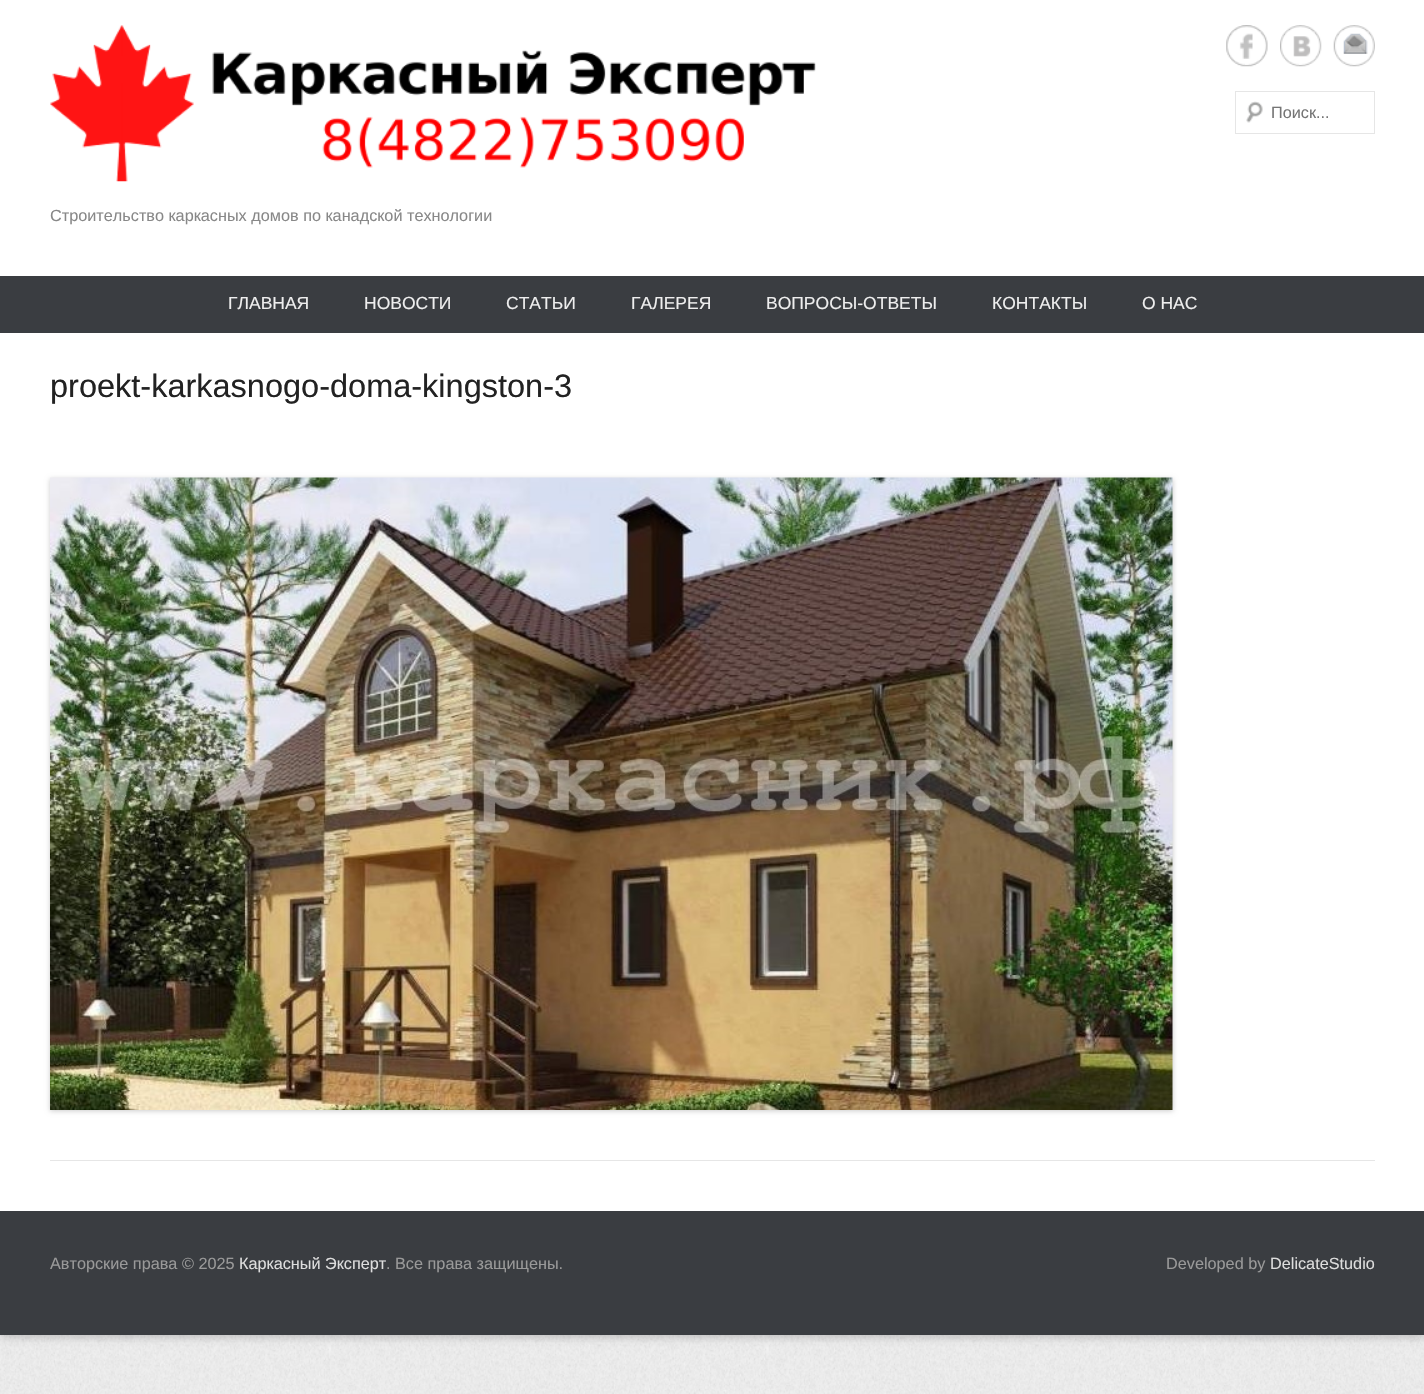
void draw(SkCanvas* canvas) {
	SkPaint fill;
	fill.setAntiAlias(true);
	auto makeFont = [&](const char* family, int weight, float size, bool italic = false) {
		SkFontStyle style(weight, SkFontStyle::kNormal_Width,
			italic ? SkFontStyle::kItalic_Slant : SkFontStyle::kUpright_Slant);
		SkFont result(fontMgr->matchFamilyStyle(family, style), size);
		result.setSubpixel(true);
		return result;
	};
	auto text = [&](const char* s, float x, float y, const SkFont& font) {
		canvas->drawString(s, x, y, font, fill);
	};
	auto box = [&](float l, float t, float r, float b) {
		canvas->drawRect(SkRect::MakeLTRB(l, t, r, b), fill);
	};
	auto picture = [&](const char* path, float l, float t, float r, float b) {
		auto image = SkImages::DeferredFromEncodedData(SkData::MakeFromFileName(path));
		canvas->drawImageRect(image, SkRect::MakeLTRB(l, t, r, b), SkSamplingOptions());
	};
	canvas->clear(0xFFFFFFFF);
	picture("image0.png", 0, 1335, 1424, 1394);
	fill.setColor(0x4D646464);
	fill.setMaskFilter(SkMaskFilter::MakeBlur(kNormal_SkBlurStyle, 4));
	canvas->drawRect(SkRect::MakeLTRB(0, 3, 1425, 1338), fill);
	fill.setMaskFilter(nullptr);
	fill.setColor(0xFFFFFFFF);
	box(0, 0, 1424, 1211);
	picture("image1.png", 1226, 25, 1268, 67);
	picture("image2.png", 1280, 25, 1322, 67);
	picture("image3.png", 1333, 25, 1375, 67);
	picture("image4.png", 1246, 101, 1263, 123);
	fill.setStyle(SkPaint::kStroke_Style);
	fill.setStrokeWidth(1);
	fill.setColor(0xFFE6E6E6);
	canvas->drawRect(SkRect::MakeLTRB(1235.5f, 91.5f, 1374.5f, 133.5f), fill);
	picture("image5.png", 50, 25, 816, 182);
	fill.setStyle(SkPaint::kFill_Style);
	fill.setColor(0xFF3A3D41);
	box(0, 276, 1424, 333);
	fill.setColor(0xFFE6E6E6);
	box(50, 1160, 1375, 1161);
	fill.setColor(0x33000000);
	fill.setMaskFilter(SkMaskFilter::MakeBlur(kNormal_SkBlurStyle, 2.5f));
	canvas->drawRect(SkRect::MakeLTRB(50, 479, 1173, 1111), fill);
	fill.setMaskFilter(nullptr);
	picture("image6.png", 50, 477, 1173, 1110);
	fill.setColor(0xFF3A3D41);
	box(0, 1211, 1424, 1335);
	auto font1 = makeFont("Liberation Sans", 400, 16.25f);
	fill.setColor(0xFF757575);
	text("Поиск...", 1271, 118, font1);
	fill.setColor(0xFF888888);
	text("Строительство каркасных домов по канадской технологии", 50, 221, font1);
	auto font2 = makeFont("Liberation Sans", 400, 17.5f);
	fill.setColor(0xFFEEEEEE);
	text("ГЛАВНАЯ", 228, 309, font2);
	text("НОВОСТИ", 364, 309, font2);
	text("СТАТЬИ", 506, 309, font2);
	text("ГАЛЕРЕЯ", 631, 309, font2);
	text("ВОПРОСЫ-ОТВЕТЫ", 766, 309, font2);
	text("КОНТАКТЫ", 992, 309, font2);
	text("О НАС", 1142, 309, font2);
	auto font3 = makeFont("Liberation Sans", 400, 32.5f);
	fill.setColor(0xFF222222);
	text("proekt-karkasnogo-doma-kingston-3", 50, 397, font3);
	fill.setColor(0xFF999999);
	text("Авторские права © 2025", 50, 1269, font1);
	fill.setColor(0xFFDDDDDD);
	text("Каркасный Эксперт", 239, 1269, font1);
	fill.setColor(0xFF999999);
	text(". Все права защищены.", 386, 1269, font1);
	text("Developed by", 1166, 1269, font1);
	fill.setColor(0xFFDDDDDD);
	text("DelicateStudio", 1270, 1269, font1);
}
